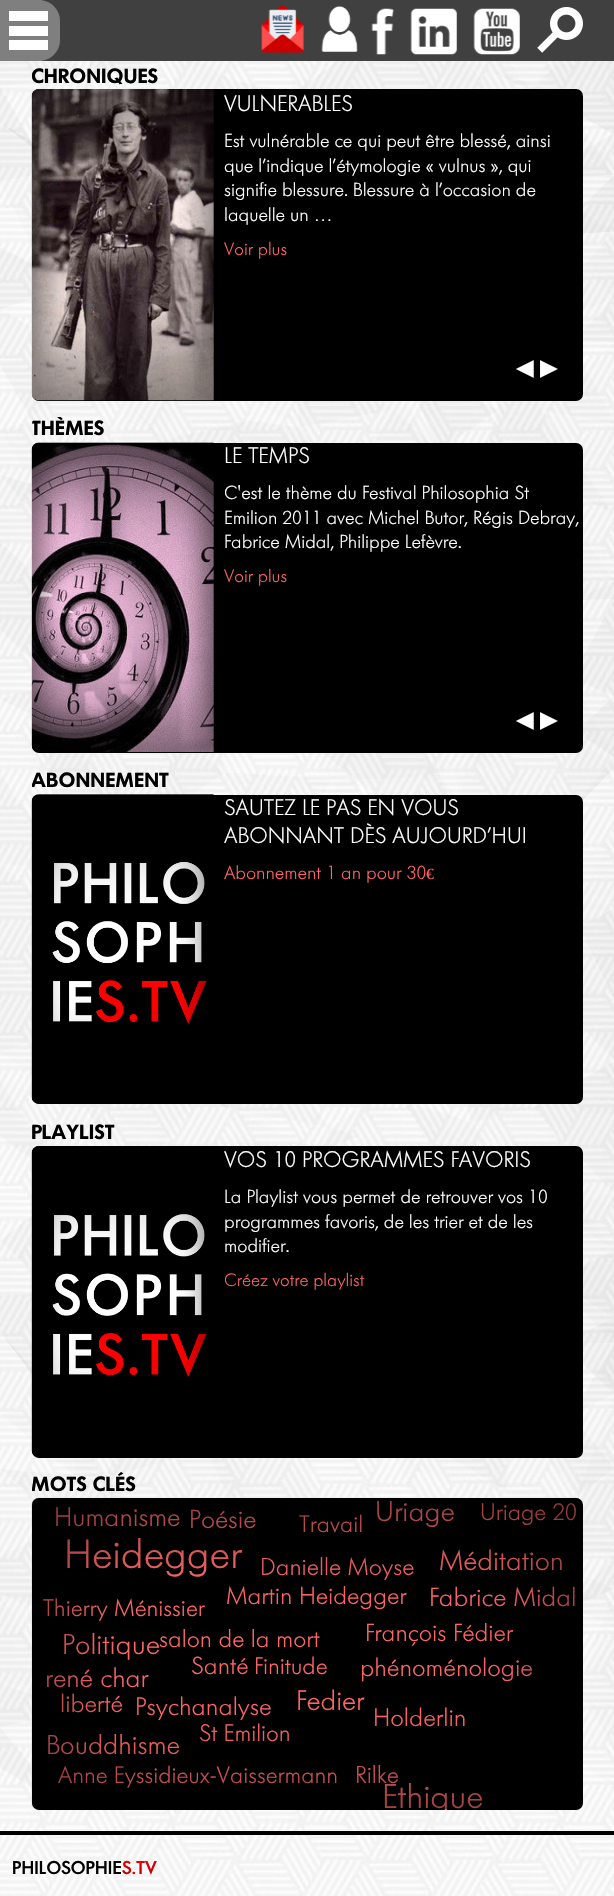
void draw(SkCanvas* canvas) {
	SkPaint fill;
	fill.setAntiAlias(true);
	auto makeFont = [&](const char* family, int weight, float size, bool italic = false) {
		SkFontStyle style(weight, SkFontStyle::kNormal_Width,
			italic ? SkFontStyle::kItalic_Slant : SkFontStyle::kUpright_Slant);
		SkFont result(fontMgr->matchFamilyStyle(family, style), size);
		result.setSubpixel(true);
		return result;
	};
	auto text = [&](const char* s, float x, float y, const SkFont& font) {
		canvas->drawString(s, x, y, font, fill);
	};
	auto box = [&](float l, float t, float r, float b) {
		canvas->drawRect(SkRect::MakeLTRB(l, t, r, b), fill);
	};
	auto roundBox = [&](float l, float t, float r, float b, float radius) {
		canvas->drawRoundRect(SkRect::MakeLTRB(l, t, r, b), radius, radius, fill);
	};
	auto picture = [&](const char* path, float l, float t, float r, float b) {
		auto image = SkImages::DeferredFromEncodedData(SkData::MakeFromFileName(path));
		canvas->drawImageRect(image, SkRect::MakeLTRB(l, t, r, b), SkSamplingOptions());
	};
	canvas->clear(0xFFFFFFFF);
	picture("image0.png", 0, 61, 614, 1896);
	fill.setColor(0xFF404040);
	box(39, 0, 614, 61);
	fill.setColor(0xFF7F7F7F);
	canvas->drawPath(SkPathBuilder().moveTo(-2, 0).lineTo(39, 0).cubicTo(50.5f, 0, 60, 9.5f, 60, 21).lineTo(60, 40).cubicTo(60, 51.5f, 50.5f, 61, 39, 61).lineTo(-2, 61).close().detach(), fill);
	fill.setColor(0xFFFFFFFF);
	box(9, 11, 48, 21);
	box(9, 26, 48, 36);
	box(9, 40, 48, 50);
	picture("image1.png", 261, 5, 305, 53);
	picture("image2.png", 321, 6, 358, 52);
	picture("image3.png", 371, 8, 394, 55);
	picture("image4.png", 410, 8, 457, 55);
	picture("image5.png", 473, 8, 520, 55);
	picture("image6.png", 537, 7, 583, 53);
	picture("image7.png", 0, 61, 614, 1789);
	fill.setColor(0xFF000000);
	roundBox(32, 89, 583, 401, 7);
	picture("image8.png", 31, 89, 214, 401);
	picture("image9.png", 31, 89, 214, 400);
	roundBox(32, 443, 583, 753, 7);
	picture("image10.png", 31, 442, 214, 752);
	picture("image11.png", 31, 442, 214, 752);
	roundBox(32, 795, 583, 1104, 7);
	picture("image12.png", 31, 794, 214, 1104);
	picture("image13.png", 31, 794, 214, 1104);
	roundBox(32, 1146, 583, 1458, 7);
	picture("image14.png", 31, 1146, 207, 1456);
	picture("image15.png", 31, 1146, 207, 1454);
	roundBox(32, 1498, 583, 1810, 7);
	box(0, 1831, 614, 1835);
	canvas->save();
	canvas->clipPath(SkPathBuilder().moveTo(39, 63).lineTo(576, 63).cubicTo(580, 63, 583, 66, 583, 70).lineTo(583, 394).cubicTo(583, 398, 580, 401, 576, 401).lineTo(39, 401).cubicTo(35, 401, 32, 398, 32, 394).lineTo(32, 70).cubicTo(32, 66, 35, 63, 39, 63).close().detach(), true);
	auto font1 = makeFont("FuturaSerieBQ", 600, 17.25f);
	text("CHRONIQUES", 31, 83, font1);
	canvas->restore();
	auto font2 = makeFont("FuturaSerieBQ", 300, 18.4f);
	fill.setColor(0xFFFFFFFF);
	text("VULNERABLES", 224, 111, font2);
	auto font3 = makeFont("FuturaSerieBQ", 300, 15.5f);
	text("Est vulnérable ce qui peut être blessé, ainsi", 224, 147, font3);
	text("que l’indique l’étymologie « vulnus », qui", 224, 172, font3);
	text("signifie blessure. Blessure à l’occasion de", 224, 196, font3);
	text("laquelle un …", 224, 221, font3);
	auto font4 = makeFont("FuturaSerieBQ", 300, 14.75f);
	fill.setColor(0xFFFF6666);
	text("Voir plus", 224, 255, font4);
	auto font5 = makeFont("DejaVu Sans", 400, 23);
	fill.setColor(0xFFFFFFFF);
	text("◀", 516, 375, font5);
	text("▶", 540, 375, font5);
	canvas->save();
	canvas->clipPath(SkPathBuilder().moveTo(39, 417).lineTo(576, 417).cubicTo(580, 417, 583, 420, 583, 424).lineTo(583, 746).cubicTo(583, 750, 580, 753, 576, 753).lineTo(39, 753).cubicTo(35, 753, 32, 750, 32, 746).lineTo(32, 424).cubicTo(32, 420, 35, 417, 39, 417).close().detach(), true);
	fill.setColor(0xFF000000);
	text("THÈMES", 31, 435, font1);
	canvas->restore();
	fill.setColor(0xFFFFFFFF);
	text("LE TEMPS", 224, 463, font2);
	text("C'est le thème du Festival Philosophia St", 224, 499, font3);
	text("Emilion 2011 avec Michel Butor, Régis Debray,", 224, 524, font3);
	text("Fabrice Midal, Philippe Lefèvre.", 224, 548, font3);
	fill.setColor(0xFFFF6666);
	text("Voir plus", 224, 582, font4);
	fill.setColor(0xFFFFFFFF);
	text("◀", 516, 727, font5);
	text("▶", 540, 727, font5);
	canvas->save();
	canvas->clipPath(SkPathBuilder().moveTo(39, 768).lineTo(576, 768).cubicTo(580, 768, 583, 771, 583, 775).lineTo(583, 1097).cubicTo(583, 1101, 580, 1104, 576, 1104).lineTo(39, 1104).cubicTo(35, 1104, 32, 1101, 32, 1097).lineTo(32, 775).cubicTo(32, 771, 35, 768, 39, 768).close().detach(), true);
	fill.setColor(0xFF000000);
	text("ABONNEMENT", 31, 787, font1);
	canvas->restore();
	fill.setColor(0xFFFFFFFF);
	text("SAUTEZ LE PAS EN VOUS", 224, 815, font2);
	text("ABONNANT DÈS AUJOURD’HUI", 224, 843, font2);
	fill.setColor(0xFFFF6666);
	text("Abonnement 1 an pour 30", 224, 879, font3);
	auto font6 = makeFont("Liberation Serif", 400, 15.5f);
	text("€", 426, 879, font6);
	canvas->save();
	canvas->clipPath(SkPathBuilder().moveTo(39, 1120).lineTo(576, 1120).cubicTo(580, 1120, 583, 1123, 583, 1127).lineTo(583, 1451).cubicTo(583, 1455, 580, 1458, 576, 1458).lineTo(39, 1458).cubicTo(35, 1458, 32, 1455, 32, 1451).lineTo(32, 1127).cubicTo(32, 1123, 35, 1120, 39, 1120).close().detach(), true);
	fill.setColor(0xFF000000);
	text("PLAYLIST", 31, 1139, font1);
	canvas->restore();
	fill.setColor(0xFFFFFFFF);
	text("VOS 10 PROGRAMMES FAVORIS", 224, 1167, font2);
	text("La Playlist vous permet de retrouver vos 10", 224, 1203, font3);
	text("programmes favoris, de les trier et de les", 224, 1228, font3);
	text("modifier.", 224, 1252, font3);
	fill.setColor(0xFFFF6666);
	text("Créez votre playlist", 224, 1286, font4);
	canvas->save();
	canvas->clipPath(SkPathBuilder().moveTo(39, 1472).lineTo(576, 1472).cubicTo(580, 1472, 583, 1475, 583, 1479).lineTo(583, 1803).cubicTo(583, 1807, 580, 1810, 576, 1810).lineTo(39, 1810).cubicTo(35, 1810, 32, 1807, 32, 1803).lineTo(32, 1479).cubicTo(32, 1475, 35, 1472, 39, 1472).close().detach(), true);
	fill.setColor(0xFF000000);
	text("MOTS CLÉS", 31, 1491, font1);
	canvas->restore();
	auto font7 = makeFont("FuturaSerieBQ", 300, 22);
	fill.setColor(0xFFFF6666);
	text("Humanisme", 54, 1526, font7);
	auto font8 = makeFont("FuturaSerieBQ", 300, 21.5f);
	text("Poésie", 189, 1528, font8);
	auto font9 = makeFont("FuturaSerieBQ", 300, 19.4f);
	text("Travail", 299, 1532, font9);
	auto font10 = makeFont("FuturaSerieBQ", 300, 23.5f);
	text("Uriage", 375, 1521, font10);
	auto font11 = makeFont("FuturaSerieBQ", 300, 19.5f);
	text("Uriage 20", 480, 1520, font11);
	auto font12 = makeFont("FuturaSerieBQ", 300, 33.5f);
	text("Heidegger", 64, 1568, font12);
	auto font13 = makeFont("FuturaSerieBQ", 300, 20);
	text("Danielle Moyse", 260, 1575, font13);
	auto font14 = makeFont("FuturaSerieBQ", 300, 23);
	text("Méditation", 439, 1570, font14);
	text("Thierry Ménissier", 43, 1616, font11);
	auto font15 = makeFont("FuturaSerieBQ", 300, 20.25f);
	text("Martin Heidegger", 226, 1604, font15);
	text("Fabrice Midal", 429, 1606, font8);
	text("Politique", 62, 1654, font10);
	text("salon de la mort", 159, 1647, font13);
	text("François Fédier", 365, 1641, font15);
	text("rené char", 45, 1687, font7);
	text("Santé", 191, 1674, font15);
	text("Finitude", 254, 1674, font11);
	auto font16 = makeFont("FuturaSerieBQ", 300, 20.75f);
	text("phénoménologie", 360, 1676, font16);
	auto font17 = makeFont("FuturaSerieBQ", 300, 20.5f);
	text("liberté", 60, 1712, font17);
	text("Psychanalyse", 135, 1715, font16);
	text("Fedier", 296, 1710, font14);
	text("Holderlin", 373, 1726, font16);
	auto font18 = makeFont("FuturaSerieBQ", 300, 22.25f);
	text("Bouddhisme", 46, 1754, font18);
	text("St Emilion", 199, 1741, font11);
	text("Anne Eyssidieux-Vaissermann", 58, 1783, font9);
	text("Rilke", 355, 1783, font13);
	canvas->save();
	canvas->clipPath(SkPathBuilder().moveTo(39, 1498).lineTo(576, 1498).cubicTo(580, 1498, 583, 1501, 583, 1505).lineTo(583, 1803).cubicTo(583, 1807, 580, 1810, 576, 1810).lineTo(39, 1810).cubicTo(35, 1810, 32, 1807, 32, 1803).lineTo(32, 1505).cubicTo(32, 1501, 35, 1498, 39, 1498).close().detach(), true);
	auto font19 = makeFont("FuturaSerieBQ", 300, 28);
	text("Ethique", 382, 1808, font19);
	canvas->restore();
	picture("image16.png", 31, 1497, 583, 1809);
	auto font20 = makeFont("FuturaSerieBQ", 500, 15.5f);
	fill.setColor(0xFF000000);
	text("PHILOSOPHIE", 12, 1874, font20);
	{
		const SkColor colors[] = {0xFFF50000, 0xFFB50000};
		const float stops[] = {0, 1};
		const SkPoint ends[] = {{122, 1856}, {122, 1879}};
		fill.setShader(SkGradientShader::MakeLinear(ends, colors, stops, 2, SkTileMode::kClamp));
		fill.setAlpha(255);
	}
	text("S.TV", 122, 1874, font20);
}
